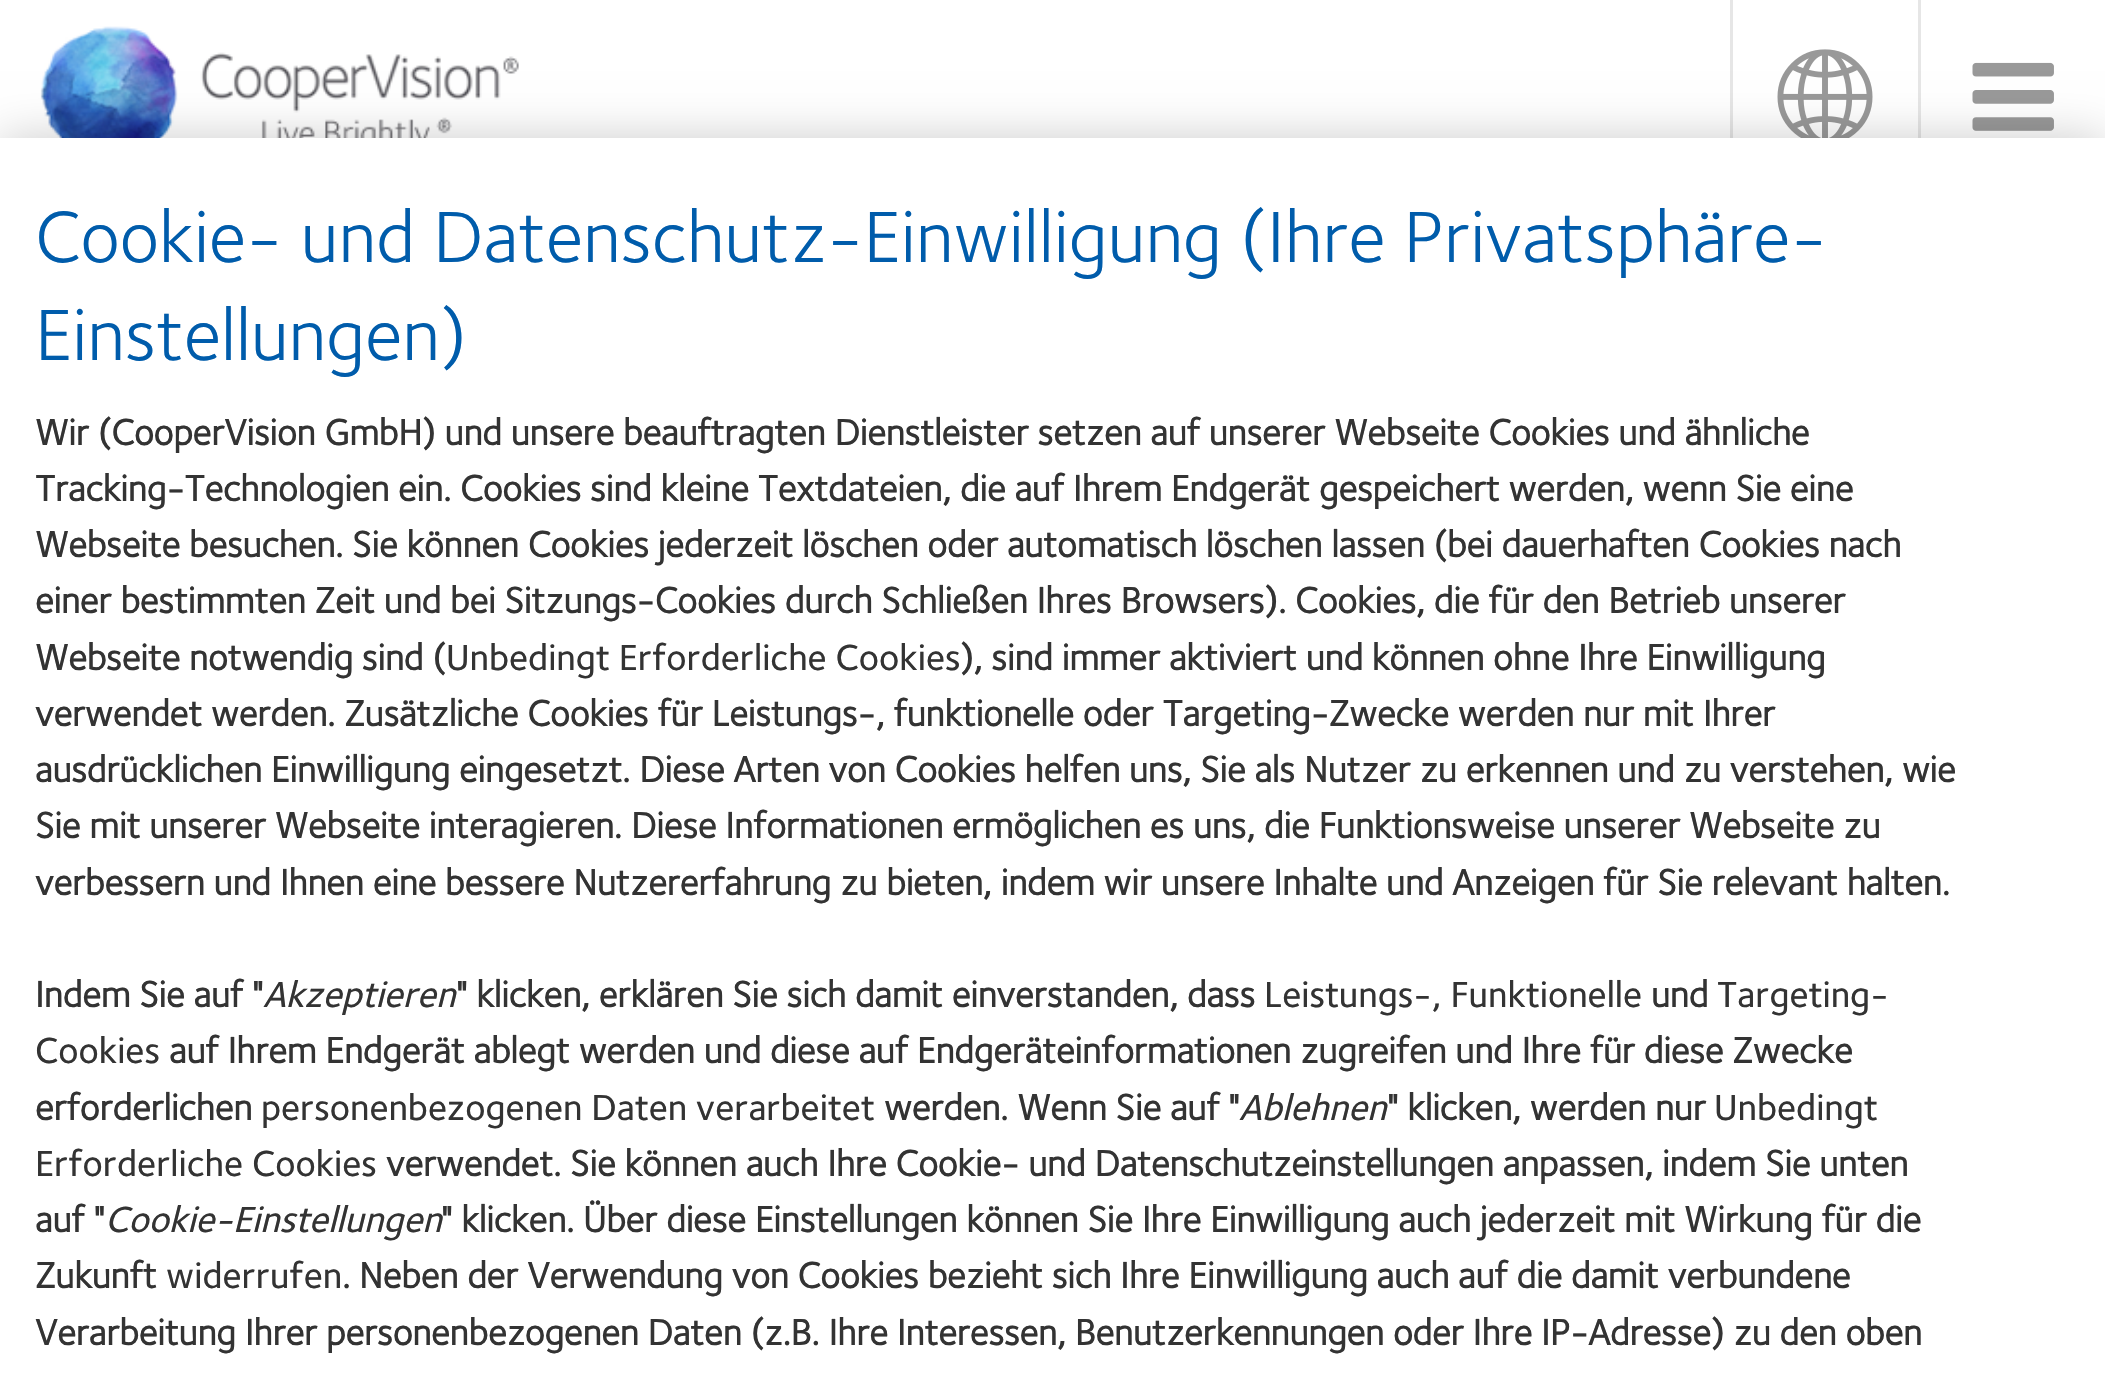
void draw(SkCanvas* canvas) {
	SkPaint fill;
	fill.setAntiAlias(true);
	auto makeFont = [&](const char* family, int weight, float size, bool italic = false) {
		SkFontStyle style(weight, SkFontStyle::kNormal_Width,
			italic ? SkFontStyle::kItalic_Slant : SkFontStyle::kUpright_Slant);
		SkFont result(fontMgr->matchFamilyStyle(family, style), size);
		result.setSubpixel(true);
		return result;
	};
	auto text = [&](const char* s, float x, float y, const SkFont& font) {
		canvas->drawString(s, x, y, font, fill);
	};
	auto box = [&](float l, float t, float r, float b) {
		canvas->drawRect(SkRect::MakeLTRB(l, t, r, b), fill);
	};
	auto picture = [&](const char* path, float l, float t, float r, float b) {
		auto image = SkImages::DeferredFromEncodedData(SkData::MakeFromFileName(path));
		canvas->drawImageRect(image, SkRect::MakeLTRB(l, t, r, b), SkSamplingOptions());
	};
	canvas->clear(0xFFFFFFFF);
	picture("image0.png", 40, 26, 519, 138);
	fill.setColor(0xFFE6E6E6);
	box(1730, 0, 1733, 138);
	picture("image1.png", 1777, 49, 1873, 138);
	box(1918, 0, 1921, 138);
	picture("image2.png", 1972, 62, 2054, 131);
	fill.setColor(0x33000000);
	fill.setMaskFilter(SkMaskFilter::MakeBlur(kNormal_SkBlurStyle, 22.5f));
	canvas->drawRect(SkRect::MakeLTRB(0, 138, 2105, 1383), fill);
	fill.setMaskFilter(nullptr);
	fill.setColor(0xFFFFFFFF);
	box(0, 138, 2105, 1382);
	auto font1 = makeFont("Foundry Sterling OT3", 400, 75);
	fill.setColor(0xFF005CAB);
	text("Cookie- und Datenschutz-Einwilligung (Ihre Privatsphäre-", 35, 262, font1);
	text("Einstellungen)", 35, 360, font1);
	auto font2 = makeFont("Foundry Sterling OT3", 700, 37.5f);
	fill.setColor(0xFF333333);
	text("Wir (CooperVision GmbH) und unsere beauftragten Dienstleister setzen auf unserer Webseite Cookies und ähnliche", 35, 445, font2);
	text("Tracking-Technologien ein. Cookies sind kleine Textdateien, die auf Ihrem Endgerät gespeichert werden, wenn Sie eine", 35, 501, font2);
	text("Webseite besuchen. Sie können Cookies jederzeit löschen oder automatisch löschen lassen (bei dauerhaften Cookies nach", 35, 557, font2);
	text("einer bestimmten Zeit und bei Sitzungs-Cookies durch Schließen Ihres Browsers). Cookies, die für den Betrieb unserer", 35, 613, font2);
	text("Webseite notwendig sind (", 35, 670, font2);
	auto font3 = makeFont("Foundry Sterling OT3", 500, 37.5f);
	text("Unbedingt Erforderliche Cookies", 446, 670, font3);
	text("), sind immer aktiviert und können ohne Ihre Einwilligung", 960, 670, font2);
	text("verwendet werden. Zusätzliche Cookies für Leistungs-, funktionelle oder Targeting-Zwecke werden nur mit Ihrer", 35, 726, font2);
	text("ausdrücklichen Einwilligung eingesetzt. Diese Arten von Cookies helfen uns, Sie als Nutzer zu erkennen und zu verstehen, wie", 35, 782, font2);
	text("Sie mit unserer Webseite interagieren. Diese Informationen ermöglichen es uns, die Funktionsweise unserer Webseite zu", 35, 838, font2);
	text("verbessern und Ihnen eine bessere Nutzererfahrung zu bieten, indem wir unsere Inhalte und Anzeigen für Sie relevant halten.", 35, 895, font2);
	text("Indem Sie auf \"", 35, 1007, font2);
	auto font4 = makeFont("Foundry Sterling OT3", 500, 37.5f, true);
	text("Akzeptieren", 263, 1007, font4);
	text("\" klicken, erklären Sie sich damit einverstanden, dass", 456, 1007, font2);
	text("Leistungs-, Funktionelle", 1264, 1007, font3);
	text("und", 1651, 1007, font2);
	text("Targeting-", 1717, 1007, font3);
	text("Cookies", 35, 1063, font3);
	text("auf Ihrem Endgerät ablegt werden und diese auf Endgeräteinformationen zugreifen und Ihre für diese Zwecke", 169, 1063, font2);
	text("erforderlichen", 35, 1120, font2);
	text("personenbezogenen Daten verarbeitet", 261, 1120, font3);
	text("werden. Wenn Sie auf \"", 884, 1120, font2);
	text("Ablehnen", 1239, 1120, font4);
	text("\" klicken, werden nur", 1387, 1120, font2);
	text("Unbedingt", 1714, 1120, font3);
	text("Erforderliche Cookies", 35, 1176, font3);
	text("verwendet. Sie können auch Ihre Cookie- und Datenschutzeinstellungen anpassen, indem Sie unten", 386, 1176, font2);
	text("auf \"", 35, 1232, font2);
	text("Cookie-Einstellungen", 105, 1232, font4);
	text("\" klicken. Über diese Einstellungen können Sie Ihre Einwilligung auch jederzeit mit Wirkung für die", 441, 1232, font2);
	text("Zukunft", 35, 1288, font2);
	text("widerrufen", 166, 1288, font3);
	text(". Neben der Verwendung von Cookies bezieht sich Ihre Einwilligung auch auf die damit verbundene", 342, 1288, font2);
	text("Verarbeitung Ihrer personenbezogenen Daten (z.B. Ihre Interessen, Benutzerkennungen oder Ihre IP-Adresse) zu den oben", 35, 1345, font2);
}
